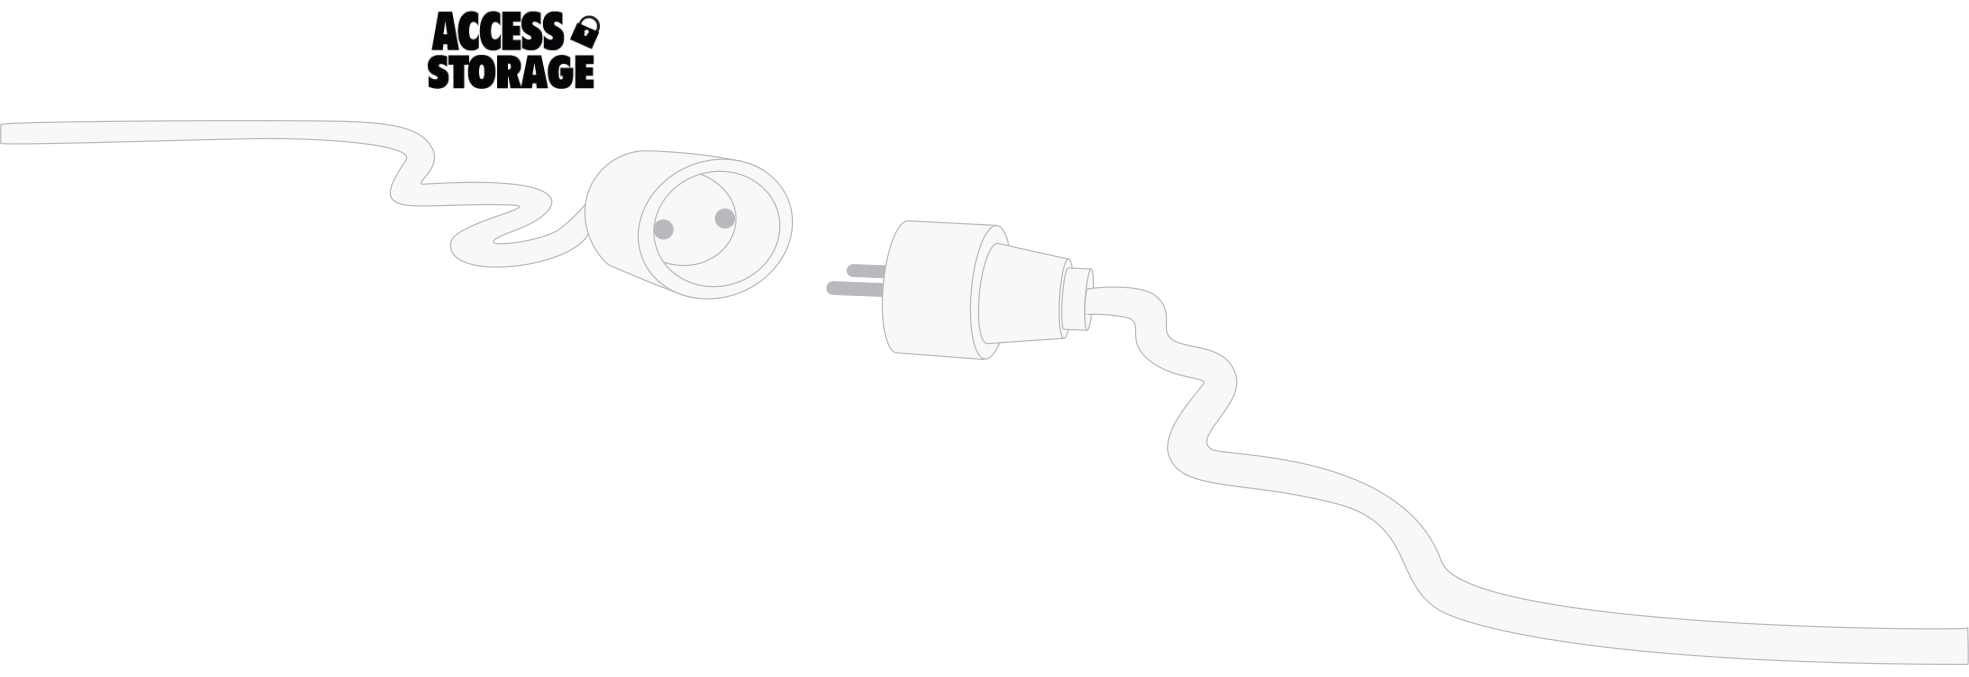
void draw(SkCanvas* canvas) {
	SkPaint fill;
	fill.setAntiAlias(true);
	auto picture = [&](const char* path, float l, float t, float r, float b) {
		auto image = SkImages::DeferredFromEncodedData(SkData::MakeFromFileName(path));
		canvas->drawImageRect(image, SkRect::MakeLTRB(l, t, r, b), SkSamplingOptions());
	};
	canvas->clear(0xFFFFFFFF);
	picture("image0.png", 427, 10, 601, 89);
	picture("image1.png", 0, 120, 1969, 665);
}
